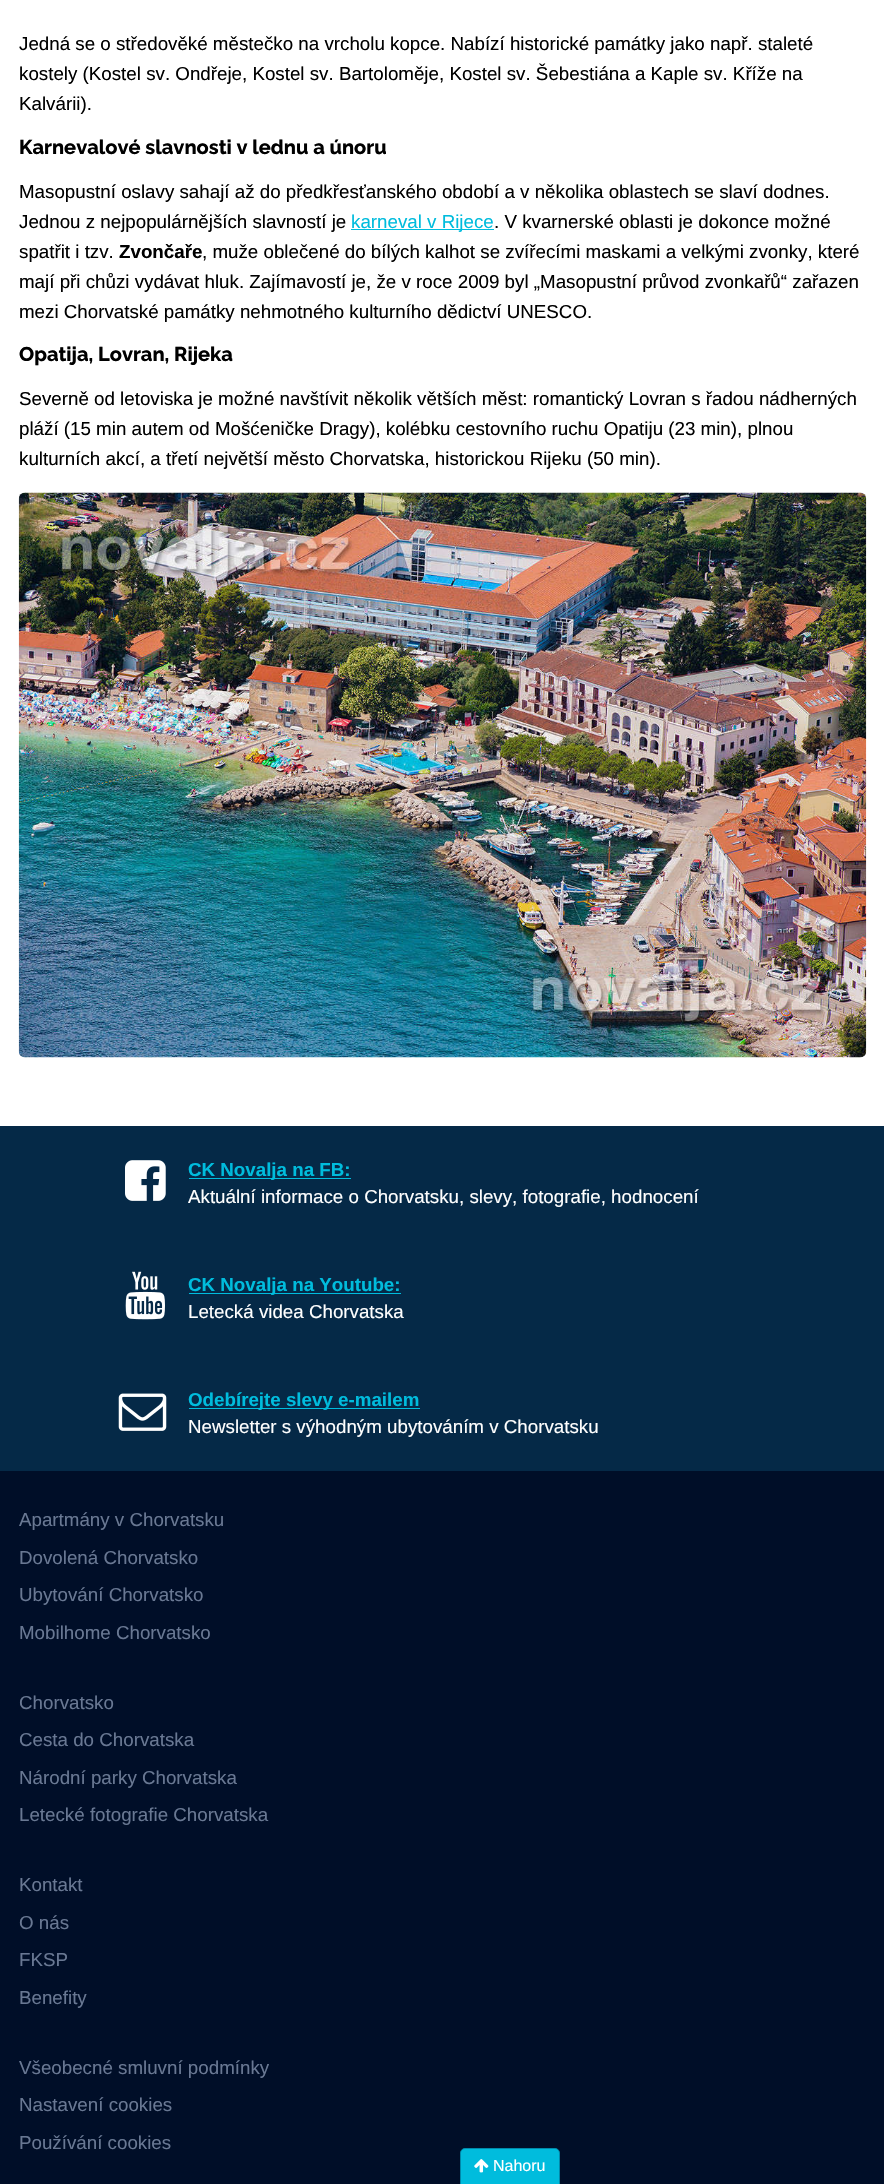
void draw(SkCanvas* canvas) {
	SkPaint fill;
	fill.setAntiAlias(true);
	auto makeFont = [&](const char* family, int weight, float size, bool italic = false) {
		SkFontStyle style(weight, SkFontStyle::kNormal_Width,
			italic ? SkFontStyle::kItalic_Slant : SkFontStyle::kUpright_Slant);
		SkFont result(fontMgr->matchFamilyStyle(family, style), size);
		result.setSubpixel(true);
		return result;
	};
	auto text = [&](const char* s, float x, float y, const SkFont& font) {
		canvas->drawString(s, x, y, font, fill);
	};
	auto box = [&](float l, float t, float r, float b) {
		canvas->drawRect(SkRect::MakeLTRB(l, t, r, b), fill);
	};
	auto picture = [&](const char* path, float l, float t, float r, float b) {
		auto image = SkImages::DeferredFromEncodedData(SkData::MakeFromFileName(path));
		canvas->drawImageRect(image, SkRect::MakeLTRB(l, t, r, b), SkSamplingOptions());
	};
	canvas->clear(0xFFFFFFFF);
	fill.setColor(0xFF00BCDD);
	box(351, 229, 494, 230);
	picture("image0.png", 18, 492, 867, 1058);
	fill.setColor(0xFF052947);
	box(0, 1126, 884, 1471);
	picture("image1.png", 125, 1160, 166, 1201);
	fill.setColor(0xFF00BCDD);
	box(189, 1178, 351, 1179);
	picture("image2.png", 125, 1271, 165, 1320);
	box(189, 1293, 401, 1294);
	picture("image3.png", 118, 1393, 167, 1431);
	box(189, 1408, 420, 1409);
	fill.setColor(0xFF000E28);
	box(0, 1471, 884, 2184);
	fill.setColor(0xFF00BCDD);
	canvas->drawPath(SkPathBuilder().moveTo(465, 2148.5f).lineTo(555, 2148.5f).cubicTo(557.5f, 2148.5f, 559.5f, 2150.5f, 559.5f, 2153).lineTo(559.5f, 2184.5f).lineTo(460.5f, 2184.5f).lineTo(460.5f, 2153).cubicTo(460.5f, 2150.5f, 462.5f, 2148.5f, 465, 2148.5f).close().detach(), fill);
	fill.setStyle(SkPaint::kStroke_Style);
	fill.setStrokeWidth(1);
	fill.setColor(0xFF0088AA);
	canvas->drawPath(SkPathBuilder().moveTo(465, 2148.5f).lineTo(555, 2148.5f).cubicTo(557.5f, 2148.5f, 559.5f, 2150.5f, 559.5f, 2153).lineTo(559.5f, 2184.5f).lineTo(460.5f, 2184.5f).lineTo(460.5f, 2153).cubicTo(460.5f, 2150.5f, 462.5f, 2148.5f, 465, 2148.5f).close().detach(), fill);
	picture("image4.png", 474, 2159, 489, 2173);
	auto font1 = makeFont("Liberation Sans", 400, 18.75f);
	fill.setStyle(SkPaint::kFill_Style);
	fill.setColor(0xFF000000);
	text("Jedná se o středověké městečko na vrcholu kopce. Nabízí historické památky jako např. staleté", 19, 50, font1);
	text("kostely (Kostel sv. Ondřeje, Kostel sv. Bartoloměje, Kostel sv. Šebestiána a Kaple sv. Kříže na", 19, 80, font1);
	text("Kalvárii).", 19, 110, font1);
	auto font2 = makeFont("Raleway", 700, 20);
	text("Karnevalové slavnosti v lednu a únoru", 19, 154, font2);
	text("Masopustní oslavy sahají až do předkřesťanského období a v několika oblastech se slaví dodnes.", 19, 198, font1);
	text("Jednou z nejpopulárnějších slavností je", 19, 228, font1);
	fill.setColor(0xFF00BCDD);
	text("karneval v Rijece", 351, 228, font1);
	fill.setColor(0xFF000000);
	text(". V kvarnerské oblasti je dokonce možné", 494, 228, font1);
	text("spatřit i tzv.", 19, 258, font1);
	auto font3 = makeFont("Liberation Sans", 700, 18.75f);
	text("Zvončaře", 119, 258, font3);
	text(", muže oblečené do bílých kalhot se zvířecími maskami a velkými zvonky, které", 202, 258, font1);
	text("mají při chůzi vydávat hluk. Zajímavostí je, že v roce 2009 byl „Masopustní průvod zvonkařů“ zařazen", 19, 288, font1);
	text("mezi Chorvatské památky nehmotného kulturního dědictví UNESCO.", 19, 318, font1);
	text("Opatija, Lovran, Rijeka", 19, 361, font2);
	text("Severně od letoviska je možné navštívit několik větších měst: romantický Lovran s řadou nádherných", 19, 405, font1);
	text("pláží (15 min autem od Mošćeničke Dragy), kolébku cestovního ruchu Opatiju (23 min), plnou", 19, 435, font1);
	text("kulturních akcí, a třetí největší město Chorvatska, historickou Rijeku (50 min).", 19, 465, font1);
	fill.setColor(0xFF00BCDD);
	text("CK Novalja na FB:", 188, 1176, font3);
	fill.setColor(0xFFFFFFFF);
	text("Aktuální informace o Chorvatsku, slevy, fotografie, hodnocení", 188, 1203, font1);
	fill.setColor(0xFF00BCDD);
	text("CK Novalja na Youtube:", 188, 1291, font3);
	fill.setColor(0xFFFFFFFF);
	text("Letecká videa Chorvatska", 188, 1318, font1);
	fill.setColor(0xFF00BCDD);
	text("Odebírejte slevy e-mailem", 188, 1406, font3);
	fill.setColor(0xFFFFFFFF);
	text("Newsletter s výhodným ubytováním v Chorvatsku", 188, 1433, font1);
	fill.setColor(0xFF697893);
	text("Apartmány v Chorvatsku", 19, 1526, font1);
	text("Dovolená Chorvatsko", 19, 1564, font1);
	text("Ubytování Chorvatsko", 19, 1601, font1);
	text("Mobilhome Chorvatsko", 19, 1639, font1);
	text("Chorvatsko", 19, 1709, font1);
	text("Cesta do Chorvatska", 19, 1746, font1);
	text("Národní parky Chorvatska", 19, 1784, font1);
	text("Letecké fotografie Chorvatska", 19, 1821, font1);
	text("Kontakt", 19, 1891, font1);
	text("O nás", 19, 1929, font1);
	text("FKSP", 19, 1966, font1);
	text("Benefity", 19, 2004, font1);
	text("Všeobecné smluvní podmínky", 19, 2074, font1);
	text("Nastavení cookies", 19, 2111, font1);
	text("Používání cookies", 19, 2149, font1);
	auto font4 = makeFont("Liberation Sans", 400, 16);
	fill.setColor(0xFFFFFFFF);
	text("Nahoru", 493, 2171, font4);
}
